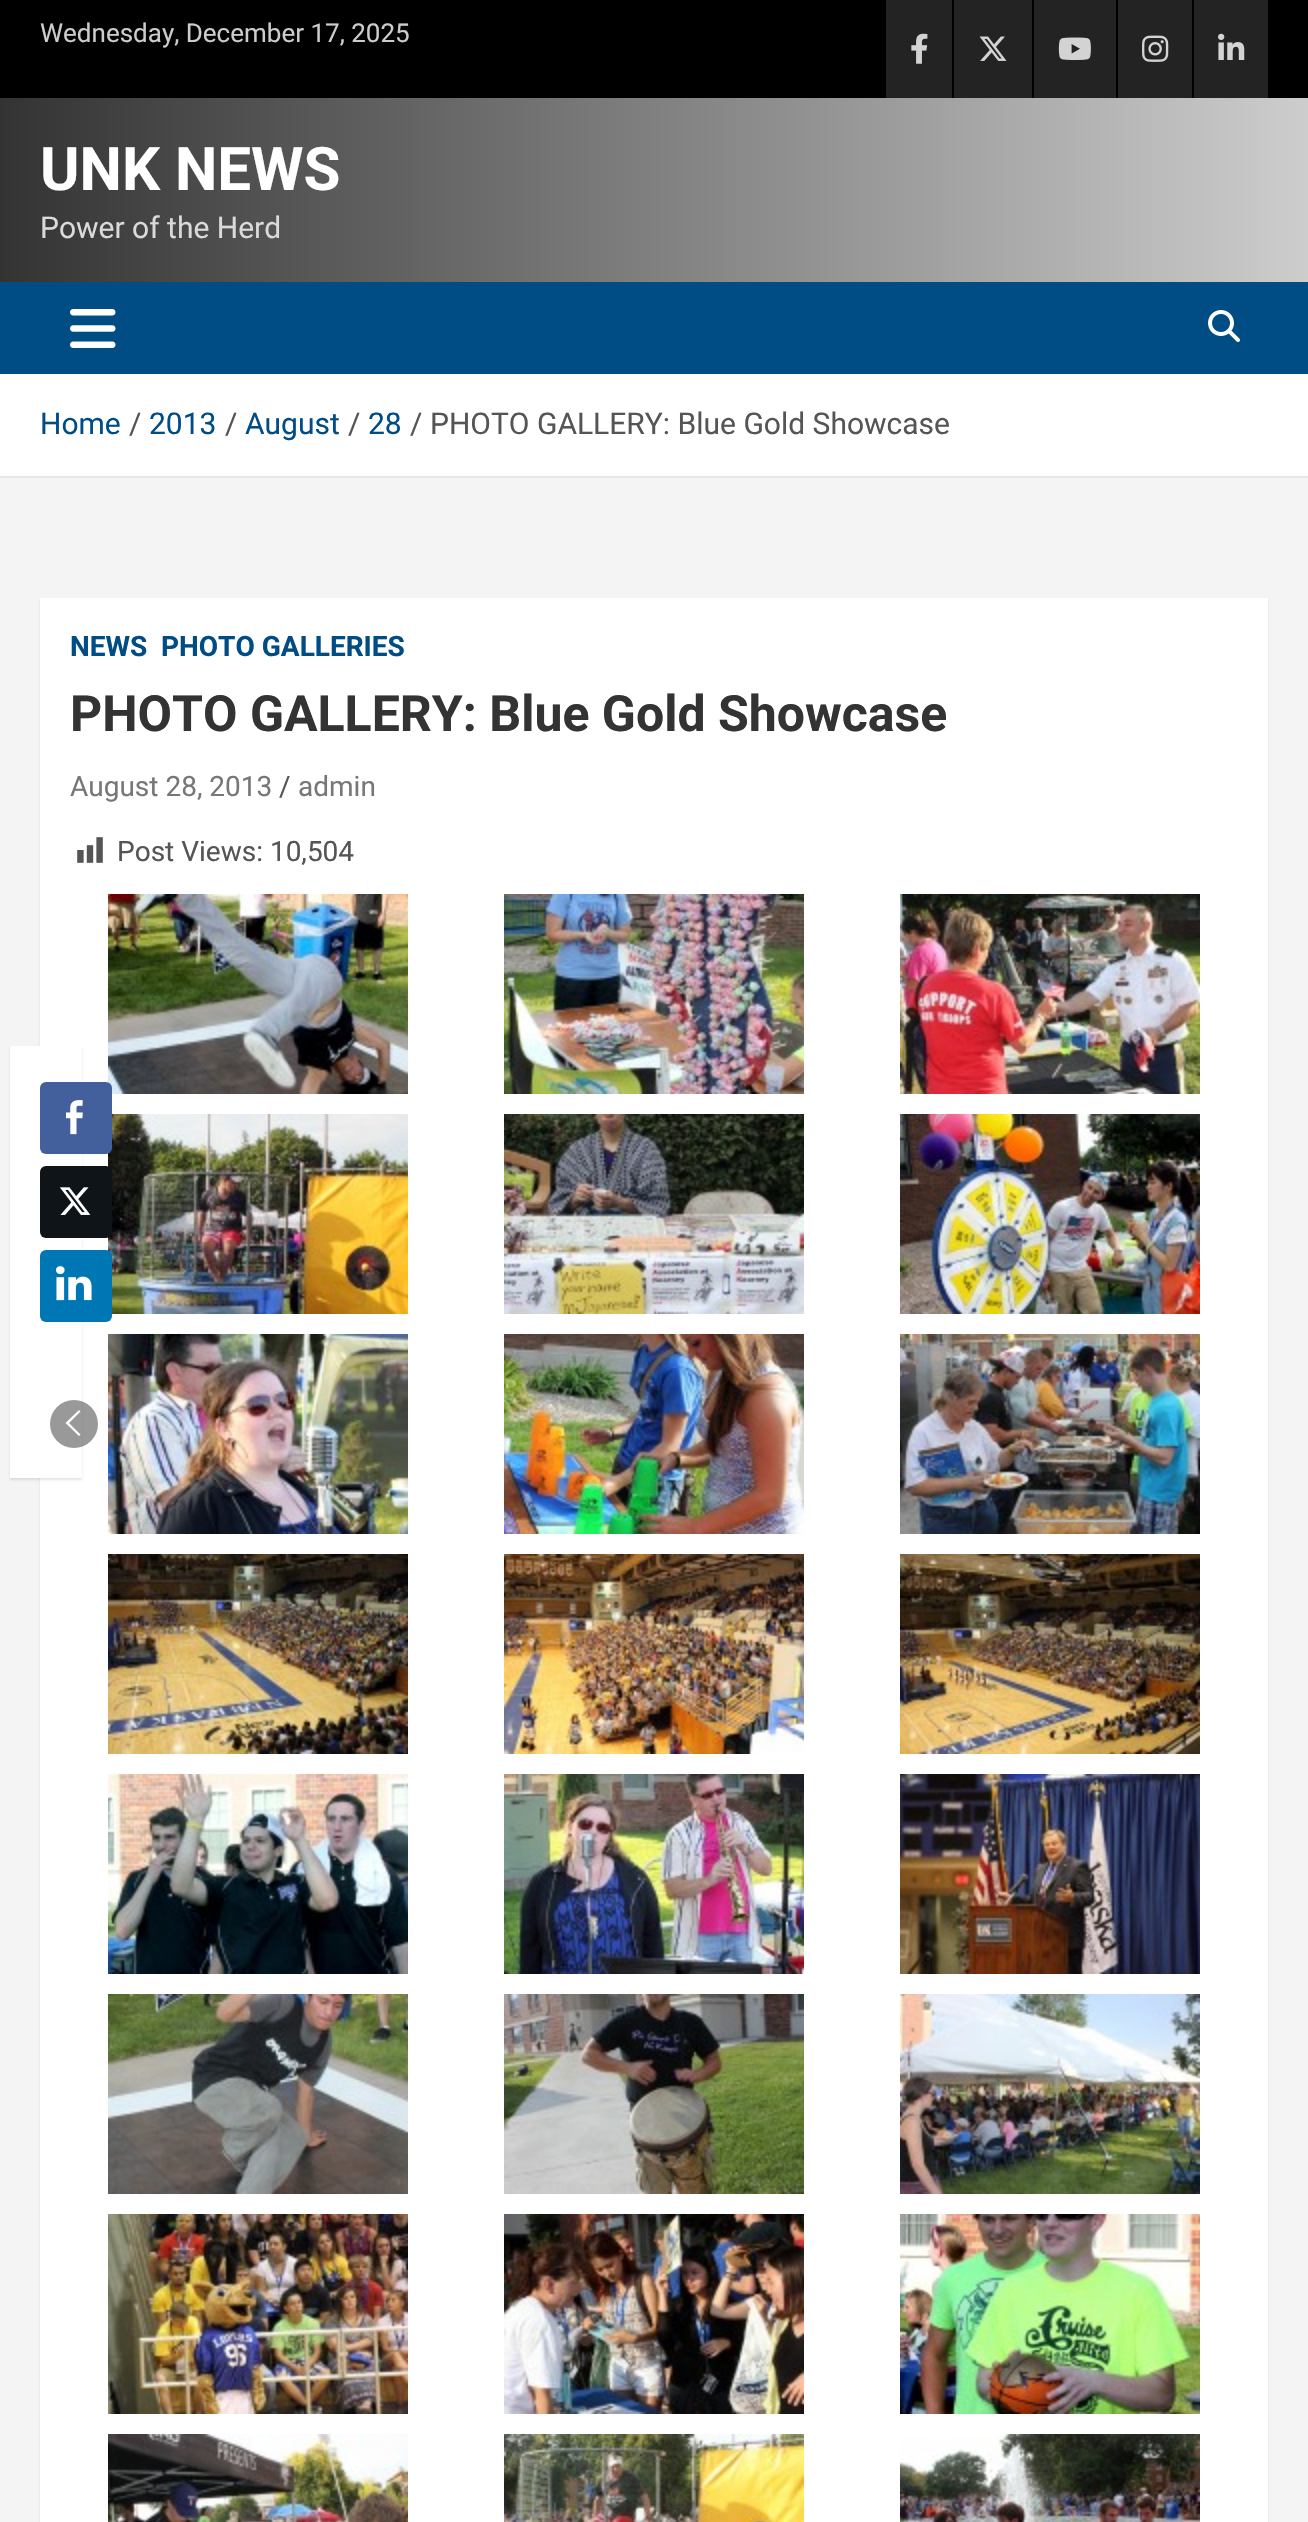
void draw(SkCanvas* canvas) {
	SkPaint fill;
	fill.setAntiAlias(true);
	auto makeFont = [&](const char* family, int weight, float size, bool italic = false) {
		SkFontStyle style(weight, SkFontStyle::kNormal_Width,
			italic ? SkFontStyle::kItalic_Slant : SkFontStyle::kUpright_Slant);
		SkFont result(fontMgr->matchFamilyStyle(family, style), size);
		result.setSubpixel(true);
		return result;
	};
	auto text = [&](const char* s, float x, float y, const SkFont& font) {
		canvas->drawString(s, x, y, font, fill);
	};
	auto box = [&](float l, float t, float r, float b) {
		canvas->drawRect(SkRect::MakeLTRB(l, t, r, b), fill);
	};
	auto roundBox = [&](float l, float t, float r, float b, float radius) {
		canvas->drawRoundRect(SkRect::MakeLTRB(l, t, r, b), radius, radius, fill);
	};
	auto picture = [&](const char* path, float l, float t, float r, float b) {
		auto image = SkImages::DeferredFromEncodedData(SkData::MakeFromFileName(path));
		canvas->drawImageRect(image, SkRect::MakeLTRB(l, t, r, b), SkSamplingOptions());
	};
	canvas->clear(0xFFF4F4F4);
	fill.setColor(0xFF000000);
	box(0, 0, 1308, 98);
	fill.setColor(0xFF232323);
	box(886, 0, 952, 98);
	picture("image0.png", 911, 33, 928, 64);
	box(954, 0, 1032, 98);
	picture("image1.png", 979, 36, 1007, 61);
	box(1034, 0, 1116, 98);
	picture("image2.png", 1058, 37, 1091, 60);
	box(1118, 0, 1192, 98);
	picture("image3.png", 1142, 35, 1169, 62);
	box(1194, 0, 1268, 98);
	picture("image4.png", 1218, 33, 1245, 60);
	{
		const SkColor colors[] = {0xFF333333, 0xFFCDCDCD};
		const float stops[] = {0, 1};
		const SkPoint ends[] = {{0, 190}, {1308, 190}};
		fill.setShader(SkGradientShader::MakeLinear(ends, colors, stops, 2, SkTileMode::kClamp));
		fill.setAlpha(255);
	}
	box(0, 98, 1308, 282);
	fill.setShader(nullptr);
	fill.setColor(0xFF004D86);
	box(0, 282, 1308, 374);
	picture("image5.png", 70, 309, 116, 348);
	picture("image6.png", 1208, 310, 1240, 342);
	fill.setColor(0xFFFFFFFF);
	box(0, 374, 1308, 476);
	fill.setColor(0xFFE6E6E6);
	box(0, 476, 1308, 478);
	fill.setColor(0x1A000000);
	fill.setMaskFilter(SkMaskFilter::MakeBlur(kNormal_SkBlurStyle, 1));
	canvas->drawRect(SkRect::MakeLTRB(40, 600, 1268, 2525), fill);
	fill.setMaskFilter(nullptr);
	fill.setColor(0xFFFFFFFF);
	box(40, 598, 1268, 2522);
	picture("image7.png", 77, 837, 103, 863);
	picture("image8.png", 108, 894, 408, 1094);
	picture("image9.png", 504, 894, 804, 1094);
	picture("image10.png", 900, 894, 1200, 1094);
	picture("image11.png", 108, 1114, 408, 1314);
	picture("image12.png", 504, 1114, 804, 1314);
	picture("image13.png", 900, 1114, 1200, 1314);
	picture("image14.png", 108, 1334, 408, 1534);
	picture("image15.png", 504, 1334, 804, 1534);
	picture("image16.png", 900, 1334, 1200, 1534);
	picture("image17.png", 108, 1554, 408, 1754);
	picture("image18.png", 504, 1554, 804, 1754);
	picture("image19.png", 900, 1554, 1200, 1754);
	picture("image20.png", 108, 1774, 408, 1974);
	picture("image21.png", 504, 1774, 804, 1974);
	picture("image22.png", 900, 1774, 1200, 1974);
	picture("image23.png", 108, 1994, 408, 2194);
	picture("image24.png", 504, 1994, 804, 2194);
	picture("image25.png", 900, 1994, 1200, 2194);
	picture("image26.png", 108, 2214, 408, 2414);
	picture("image27.png", 504, 2214, 804, 2414);
	picture("image28.png", 900, 2214, 1200, 2414);
	picture("image29.png", 108, 2434, 408, 2522);
	picture("image30.png", 504, 2434, 804, 2522);
	picture("image31.png", 900, 2434, 1200, 2522);
	fill.setColor(0x1A000000);
	fill.setMaskFilter(SkMaskFilter::MakeBlur(kNormal_SkBlurStyle, 1));
	canvas->drawRect(SkRect::MakeLTRB(10, 1048, 82, 1480), fill);
	fill.setMaskFilter(nullptr);
	fill.setColor(0xFFFFFFFF);
	box(10, 1046, 82, 1478);
	fill.setColor(0xFF43609C);
	roundBox(40, 1082, 112, 1154, 6);
	picture("image32.png", 66, 1100, 83, 1135);
	fill.setColor(0xFF0F1419);
	roundBox(40, 1166, 112, 1238, 6);
	picture("image33.png", 59, 1187, 91, 1215);
	fill.setColor(0xFF0077B5);
	roundBox(40, 1250, 112, 1322, 6);
	picture("image34.png", 56, 1266, 92, 1301);
	fill.setColor(0x66000000);
	canvas->drawCircle(74, 1424, 24, fill);
	fill.setColor(0xFFFFFFFF);
	canvas->drawPath(SkPathBuilder().moveTo(80.5f, 1411.5f).lineTo(79, 1410).lineTo(65.5f, 1423).lineTo(79, 1436).lineTo(80.5f, 1434.5f).lineTo(69, 1423).detach(), fill);
	auto font1 = makeFont("Roboto", 400, 26);
	fill.setColor(0xFFCCCCCC);
	text("Wednesday, December 17, 2025", 40, 42, font1);
	auto font2 = makeFont("Roboto", 700, 60);
	fill.setColor(0xFFFFFFFF);
	text("UNK NEWS", 40, 190, font2);
	auto font3 = makeFont("Roboto", 400, 30);
	fill.setColor(0xFFDADADA);
	text("Power of the Herd", 40, 238, font3);
	fill.setColor(0xFF004D86);
	text("Home", 40, 434, font3);
	fill.setColor(0xFF555555);
	text("/", 129, 434, font3);
	fill.setColor(0xFF004D86);
	text("2013", 149, 434, font3);
	fill.setColor(0xFF555555);
	text("/", 225, 434, font3);
	fill.setColor(0xFF004D86);
	text("August", 245, 434, font3);
	fill.setColor(0xFF555555);
	text("/", 348, 434, font3);
	fill.setColor(0xFF004D86);
	text("28", 368, 434, font3);
	fill.setColor(0xFF555555);
	text("/", 410, 434, font3);
	text("PHOTO GALLERY: Blue Gold Showcase", 430, 434, font3);
	auto font4 = makeFont("Roboto", 700, 28);
	fill.setColor(0xFF004D86);
	text("NEWS", 70, 656, font4);
	text("PHOTO GALLERIES", 161, 656, font4);
	auto font5 = makeFont("Roboto", 700, 50);
	fill.setColor(0xFF333333);
	text("PHOTO GALLERY: Blue Gold Showcase", 70, 731, font5);
	auto font6 = makeFont("Roboto", 400, 28);
	fill.setColor(0xFF777777);
	text("August 28, 2013", 70, 796, font6);
	fill.setColor(0xFF555555);
	text("/", 279, 796, font6);
	fill.setColor(0xFF777777);
	text("admin", 298, 796, font6);
	fill.setColor(0xFF555555);
	text("Post Views: 10,504", 117, 861, font6);
}
